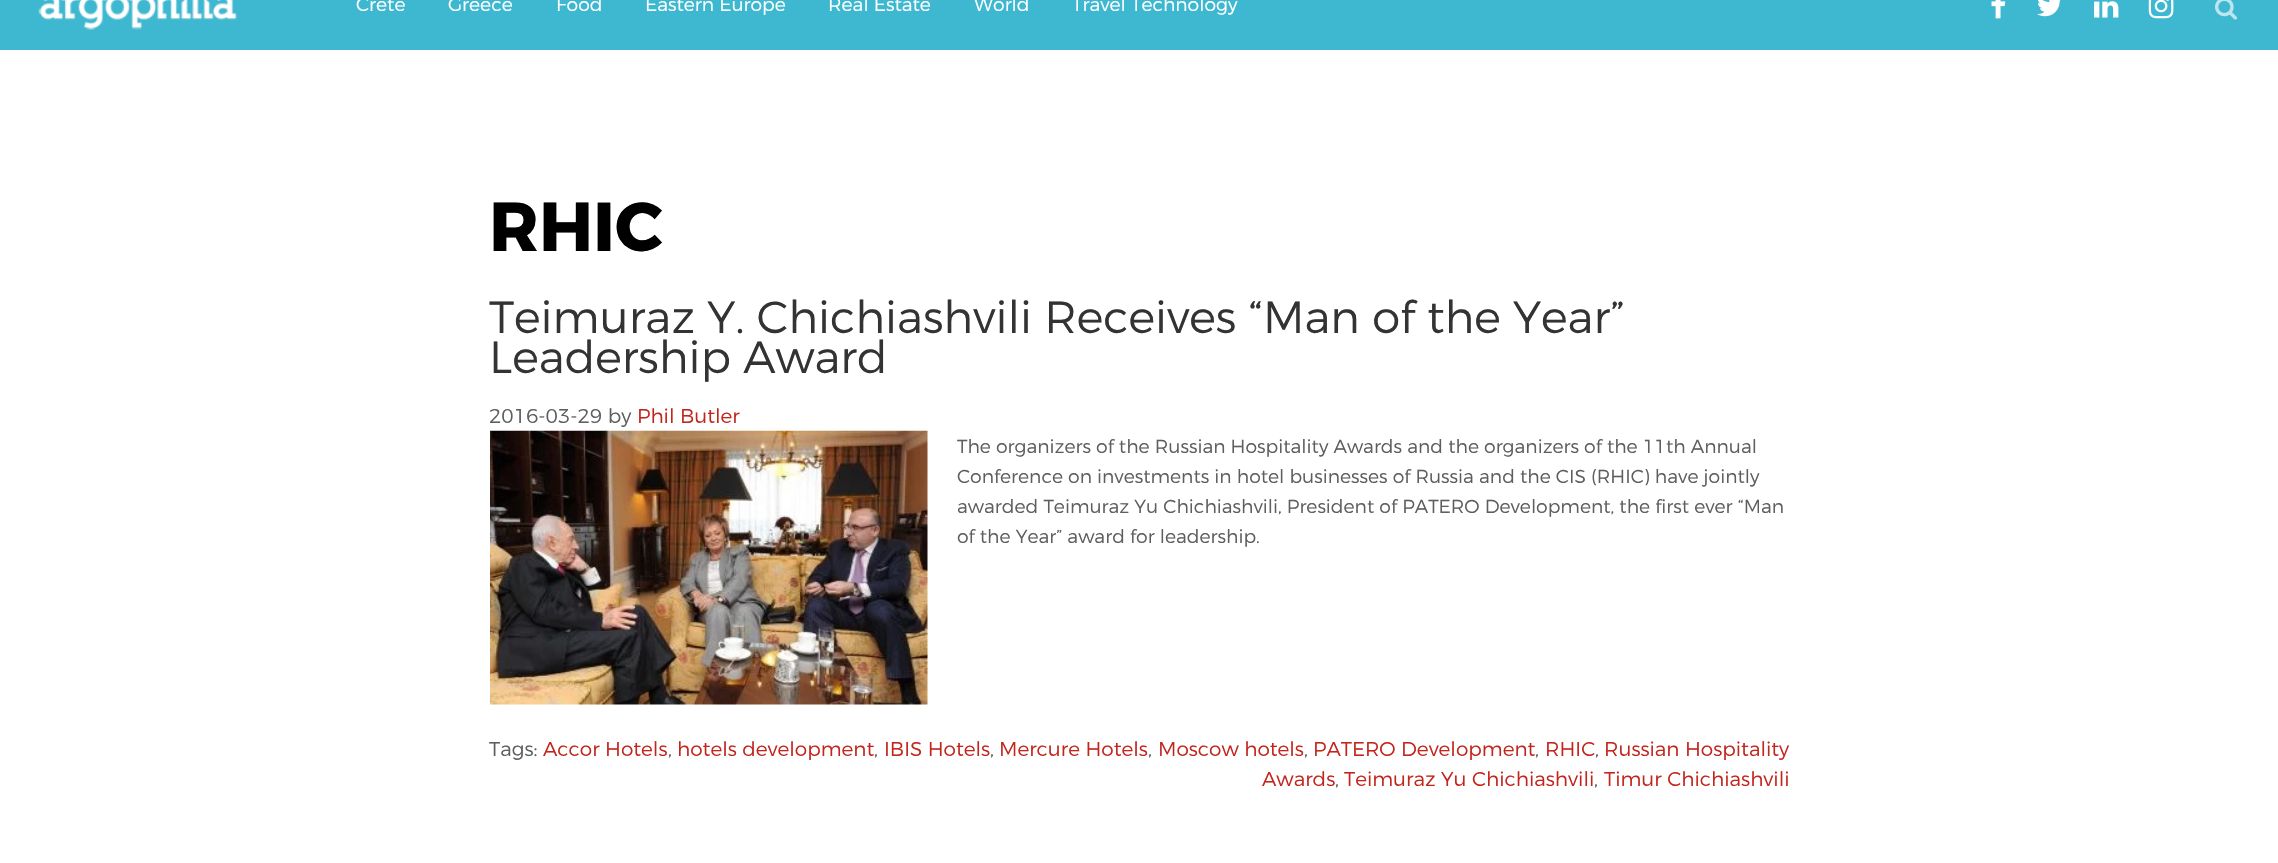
void draw(SkCanvas* canvas) {
	SkPaint fill;
	fill.setAntiAlias(true);
	auto makeFont = [&](const char* family, int weight, float size, bool italic = false) {
		SkFontStyle style(weight, SkFontStyle::kNormal_Width,
			italic ? SkFontStyle::kItalic_Slant : SkFontStyle::kUpright_Slant);
		SkFont result(fontMgr->matchFamilyStyle(family, style), size);
		result.setSubpixel(true);
		return result;
	};
	auto text = [&](const char* s, float x, float y, const SkFont& font) {
		canvas->drawString(s, x, y, font, fill);
	};
	auto box = [&](float l, float t, float r, float b) {
		canvas->drawRect(SkRect::MakeLTRB(l, t, r, b), fill);
	};
	auto picture = [&](const char* path, float l, float t, float r, float b) {
		auto image = SkImages::DeferredFromEncodedData(SkData::MakeFromFileName(path));
		canvas->drawImageRect(image, SkRect::MakeLTRB(l, t, r, b), SkSamplingOptions());
	};
	canvas->clear(0xFFFFFFFF);
	fill.setColor(0xFF3EB8D0);
	box(0, 0, 2278, 50);
	picture("image0.png", 38, 0, 237, 30);
	picture("image1.png", 1991, 0, 2006, 19);
	picture("image2.png", 2037, 0, 2061, 17);
	picture("image3.png", 2094, 1, 2119, 18);
	picture("image4.png", 2148, 0, 2174, 19);
	picture("image5.png", 2215, 0, 2237, 20);
	picture("image6.png", 490, 430, 928, 705);
	auto font1 = makeFont("Montserrat", 300, 18.75f);
	fill.setColor(0xFFFFFFFF);
	text("Crete", 356, 11, font1);
	text("Greece", 448, 11, font1);
	text("Food", 556, 11, font1);
	text("Eastern Europe", 645, 11, font1);
	text("Real Estate", 828, 11, font1);
	text("World", 974, 11, font1);
	text("Travel Technology", 1072, 11, font1);
	auto font2 = makeFont("Montserrat", 700, 69);
	fill.setColor(0xFF000000);
	text("RHIC", 489, 251, font2);
	auto font3 = makeFont("Montserrat", 300, 45);
	fill.setColor(0xFF333333);
	text("Teimuraz Y. Chichiashvili Receives “Man of the Year”", 489, 333, font3);
	text("Leadership Award", 489, 373, font3);
	auto font4 = makeFont("Montserrat", 300, 20);
	fill.setColor(0xFF5E5E5E);
	text("2016-03-29 by", 489, 423, font4);
	fill.setColor(0xFFC3251D);
	text("Phil Butler", 637, 423, font4);
	fill.setColor(0xFF5E5E5E);
	text("The organizers of the Russian Hospitality Awards and the organizers of the 11th Annual", 957, 453, font1);
	text("Conference on investments in hotel businesses of Russia and the CIS (RHIC) have jointly", 957, 483, font1);
	text("awarded Teimuraz Yu Chichiashvili, President of PATERO Development, the first ever “Man", 957, 513, font1);
	text("of the Year” award for leadership.", 957, 543, font1);
	text("Tags:", 489, 756, font4);
	fill.setColor(0xFFC3251D);
	text("Accor Hotels", 543, 756, font4);
	fill.setColor(0xFF5E5E5E);
	text(",", 668, 756, font4);
	fill.setColor(0xFFC3251D);
	text("hotels development", 677, 756, font4);
	fill.setColor(0xFF5E5E5E);
	text(",", 874, 756, font4);
	fill.setColor(0xFFC3251D);
	text("IBIS Hotels", 884, 756, font4);
	fill.setColor(0xFF5E5E5E);
	text(",", 990, 756, font4);
	fill.setColor(0xFFC3251D);
	text("Mercure Hotels", 999, 756, font4);
	fill.setColor(0xFF5E5E5E);
	text(",", 1148, 756, font4);
	fill.setColor(0xFFC3251D);
	text("Moscow hotels", 1158, 756, font4);
	fill.setColor(0xFF5E5E5E);
	text(",", 1304, 756, font4);
	fill.setColor(0xFFC3251D);
	text("PATERO Development", 1313, 756, font4);
	fill.setColor(0xFF5E5E5E);
	text(",", 1535, 756, font4);
	fill.setColor(0xFFC3251D);
	text("RHIC", 1545, 756, font4);
	fill.setColor(0xFF5E5E5E);
	text(",", 1595, 756, font4);
	fill.setColor(0xFFC3251D);
	text("Russian Hospitality", 1604, 756, font4);
	text("Awards", 1262, 786, font4);
	fill.setColor(0xFF5E5E5E);
	text(",", 1335, 786, font4);
	fill.setColor(0xFFC3251D);
	text("Teimuraz Yu Chichiashvili", 1344, 786, font4);
	fill.setColor(0xFF5E5E5E);
	text(",", 1594, 786, font4);
	fill.setColor(0xFFC3251D);
	text("Timur Chichiashvili", 1604, 786, font4);
}
